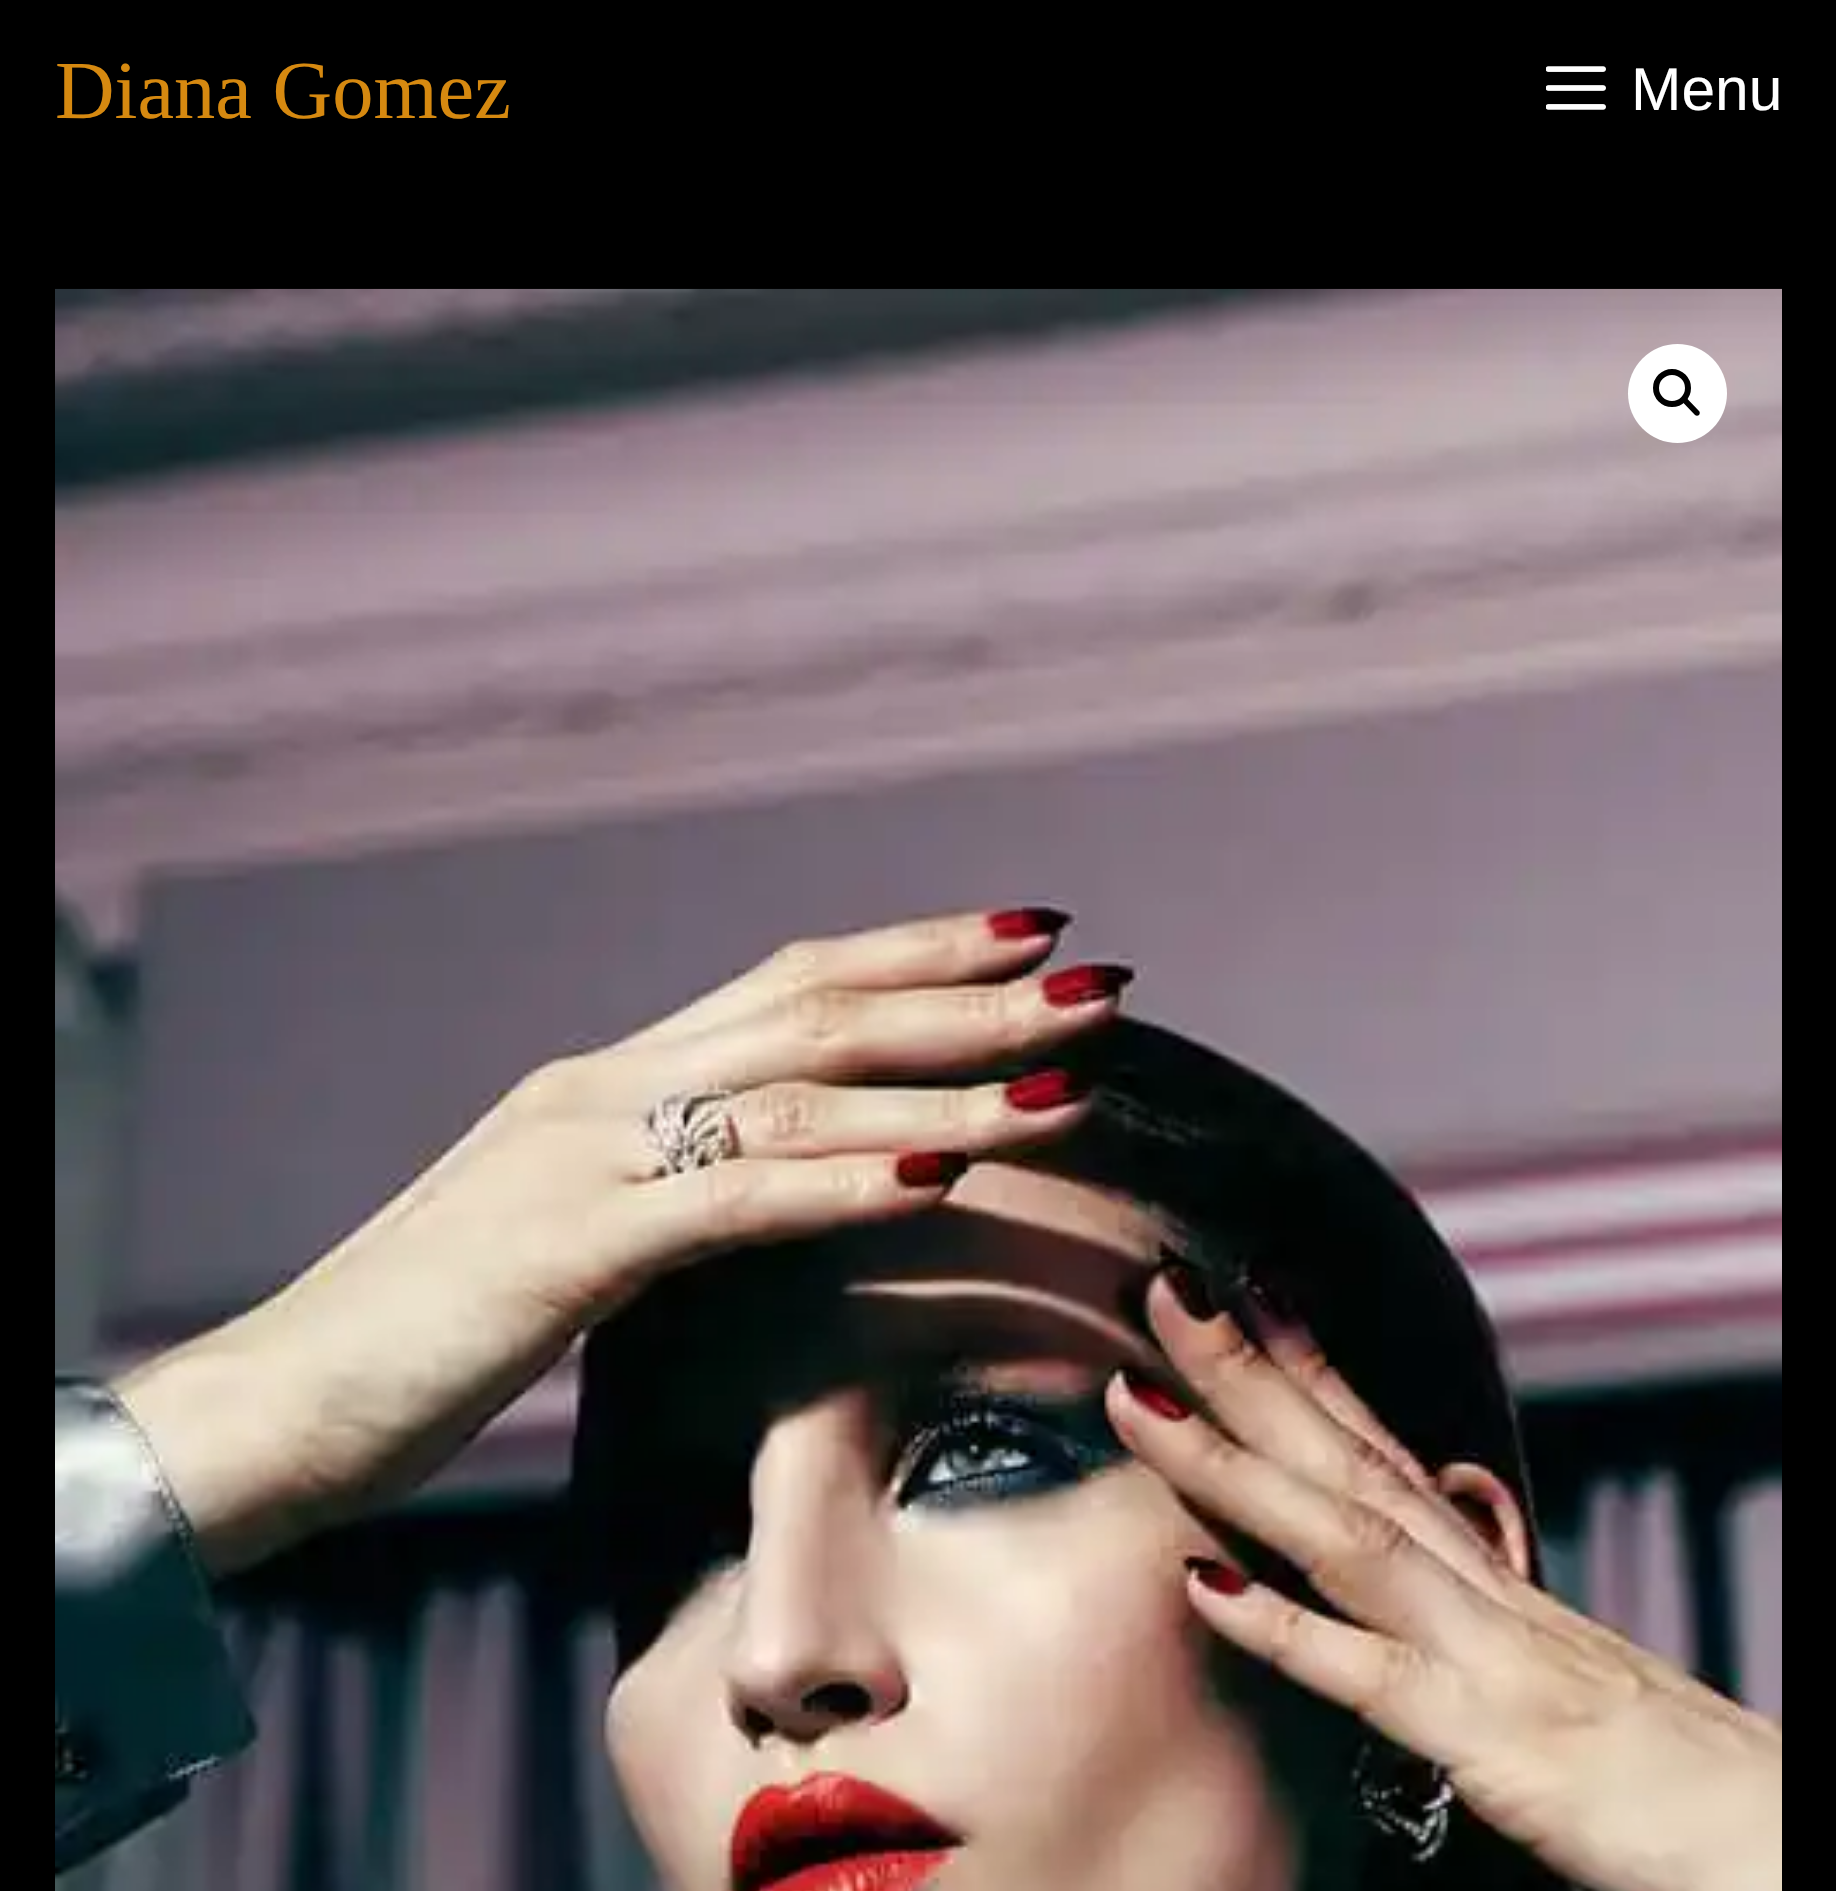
void draw(SkCanvas* canvas) {
	SkPaint fill;
	fill.setAntiAlias(true);
	auto makeFont = [&](const char* family, int weight, float size, bool italic = false) {
		SkFontStyle style(weight, SkFontStyle::kNormal_Width,
			italic ? SkFontStyle::kItalic_Slant : SkFontStyle::kUpright_Slant);
		SkFont result(fontMgr->matchFamilyStyle(family, style), size);
		result.setSubpixel(true);
		return result;
	};
	auto text = [&](const char* s, float x, float y, const SkFont& font) {
		canvas->drawString(s, x, y, font, fill);
	};
	auto picture = [&](const char* path, float l, float t, float r, float b) {
		auto image = SkImages::DeferredFromEncodedData(SkData::MakeFromFileName(path));
		canvas->drawImageRect(image, SkRect::MakeLTRB(l, t, r, b), SkSamplingOptions());
	};
	canvas->clear(0xFF000000);
	picture("image0.png", 1546, 66, 1606, 110);
	picture("image1.png", 55, 288, 1782, 1891);
	fill.setColor(0xFFFFFFFF);
	canvas->drawCircle(1677.5f, 393.5f, 49.5f, fill);
	fill.setStyle(SkPaint::kStroke_Style);
	fill.setStrokeWidth(6);
	fill.setColor(0xFF000000);
	canvas->drawCircle(1672, 388, 16, fill);
	fill.setStyle(SkPaint::kFill_Style);
	canvas->drawPath(SkPathBuilder().moveTo(1683.5f, 399).cubicTo(1684.5f, 398, 1686.5f, 398, 1687.5f, 399).lineTo(1699, 411).cubicTo(1700, 412, 1700, 413.5f, 1699, 415).cubicTo(1698, 416, 1696, 416, 1695, 415).lineTo(1683.5f, 403).cubicTo(1682.5f, 402, 1682.5f, 400.5f, 1683.5f, 399).close().detach(), fill);
	auto font1 = makeFont("Liberation Serif", 400, 82.5f);
	fill.setColor(0xFFD68910);
	text("Diana Gomez", 55, 118, font1);
	auto font2 = makeFont("Liberation Sans", 400, 60.5f);
	fill.setColor(0xFFFFFFFF);
	text("Menu", 1631, 110, font2);
}
